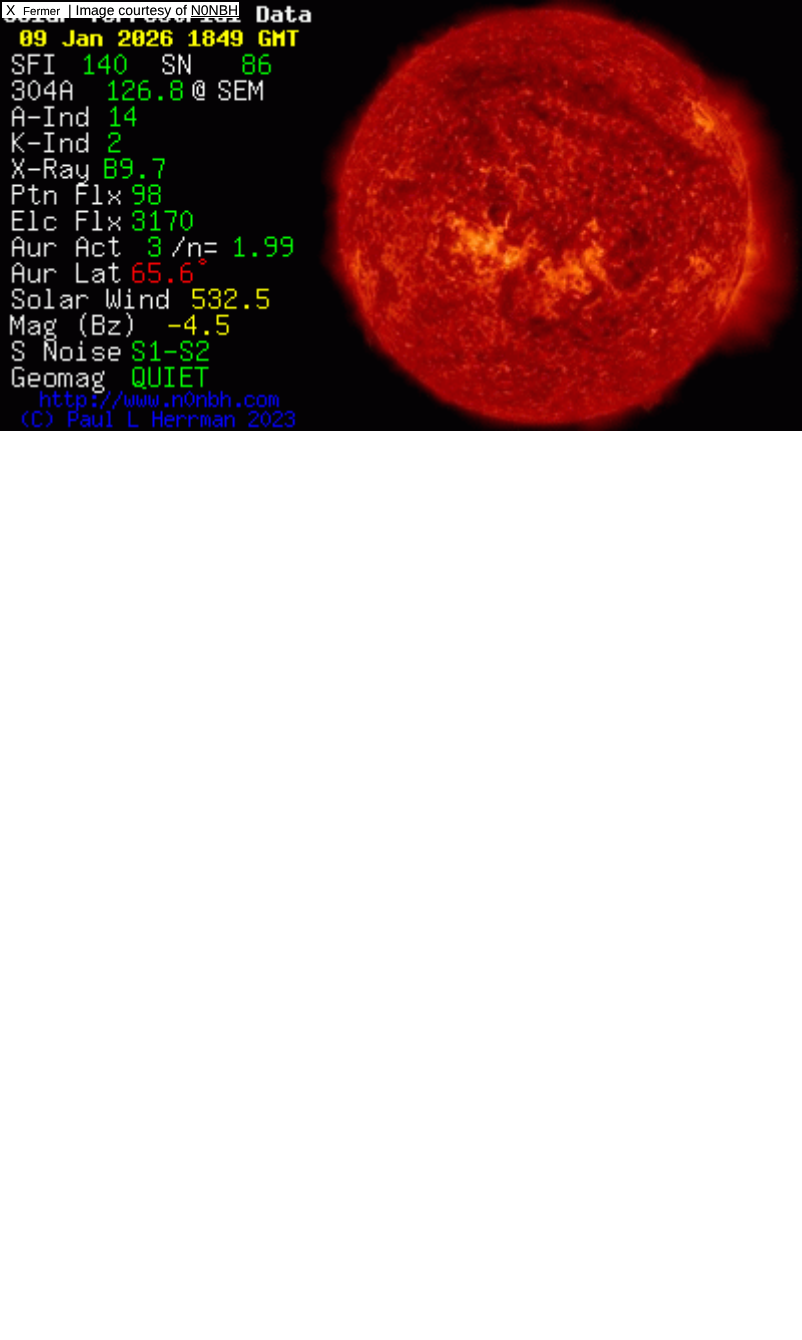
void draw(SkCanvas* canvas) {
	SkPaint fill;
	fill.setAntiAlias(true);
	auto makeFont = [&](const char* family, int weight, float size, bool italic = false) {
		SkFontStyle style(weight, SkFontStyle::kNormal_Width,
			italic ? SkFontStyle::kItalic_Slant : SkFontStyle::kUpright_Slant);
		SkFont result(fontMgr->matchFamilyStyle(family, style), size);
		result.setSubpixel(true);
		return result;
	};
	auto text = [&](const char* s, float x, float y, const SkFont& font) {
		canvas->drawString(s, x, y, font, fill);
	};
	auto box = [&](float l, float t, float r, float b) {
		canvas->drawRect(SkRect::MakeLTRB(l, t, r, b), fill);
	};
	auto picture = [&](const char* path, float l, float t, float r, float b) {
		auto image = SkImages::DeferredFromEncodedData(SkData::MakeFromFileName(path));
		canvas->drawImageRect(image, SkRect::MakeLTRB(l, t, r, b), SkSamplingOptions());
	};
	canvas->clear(0xFFFFFFFF);
	picture("image0.png", 0, 0, 802, 431);
	fill.setColor(0xFFFFFFFF);
	box(2, 2, 239, 18);
	fill.setColor(0xFF000000);
	box(191, 16, 239, 17);
	auto font1 = makeFont("Liberation Sans", 400, 14);
	text("X", 6, 15, font1);
	auto font2 = makeFont("Liberation Sans", 400, 11.5f);
	text("Fermer", 23, 15, font2);
	text("| Image courtesy of N0NBH", 68, 15, font1);
}
